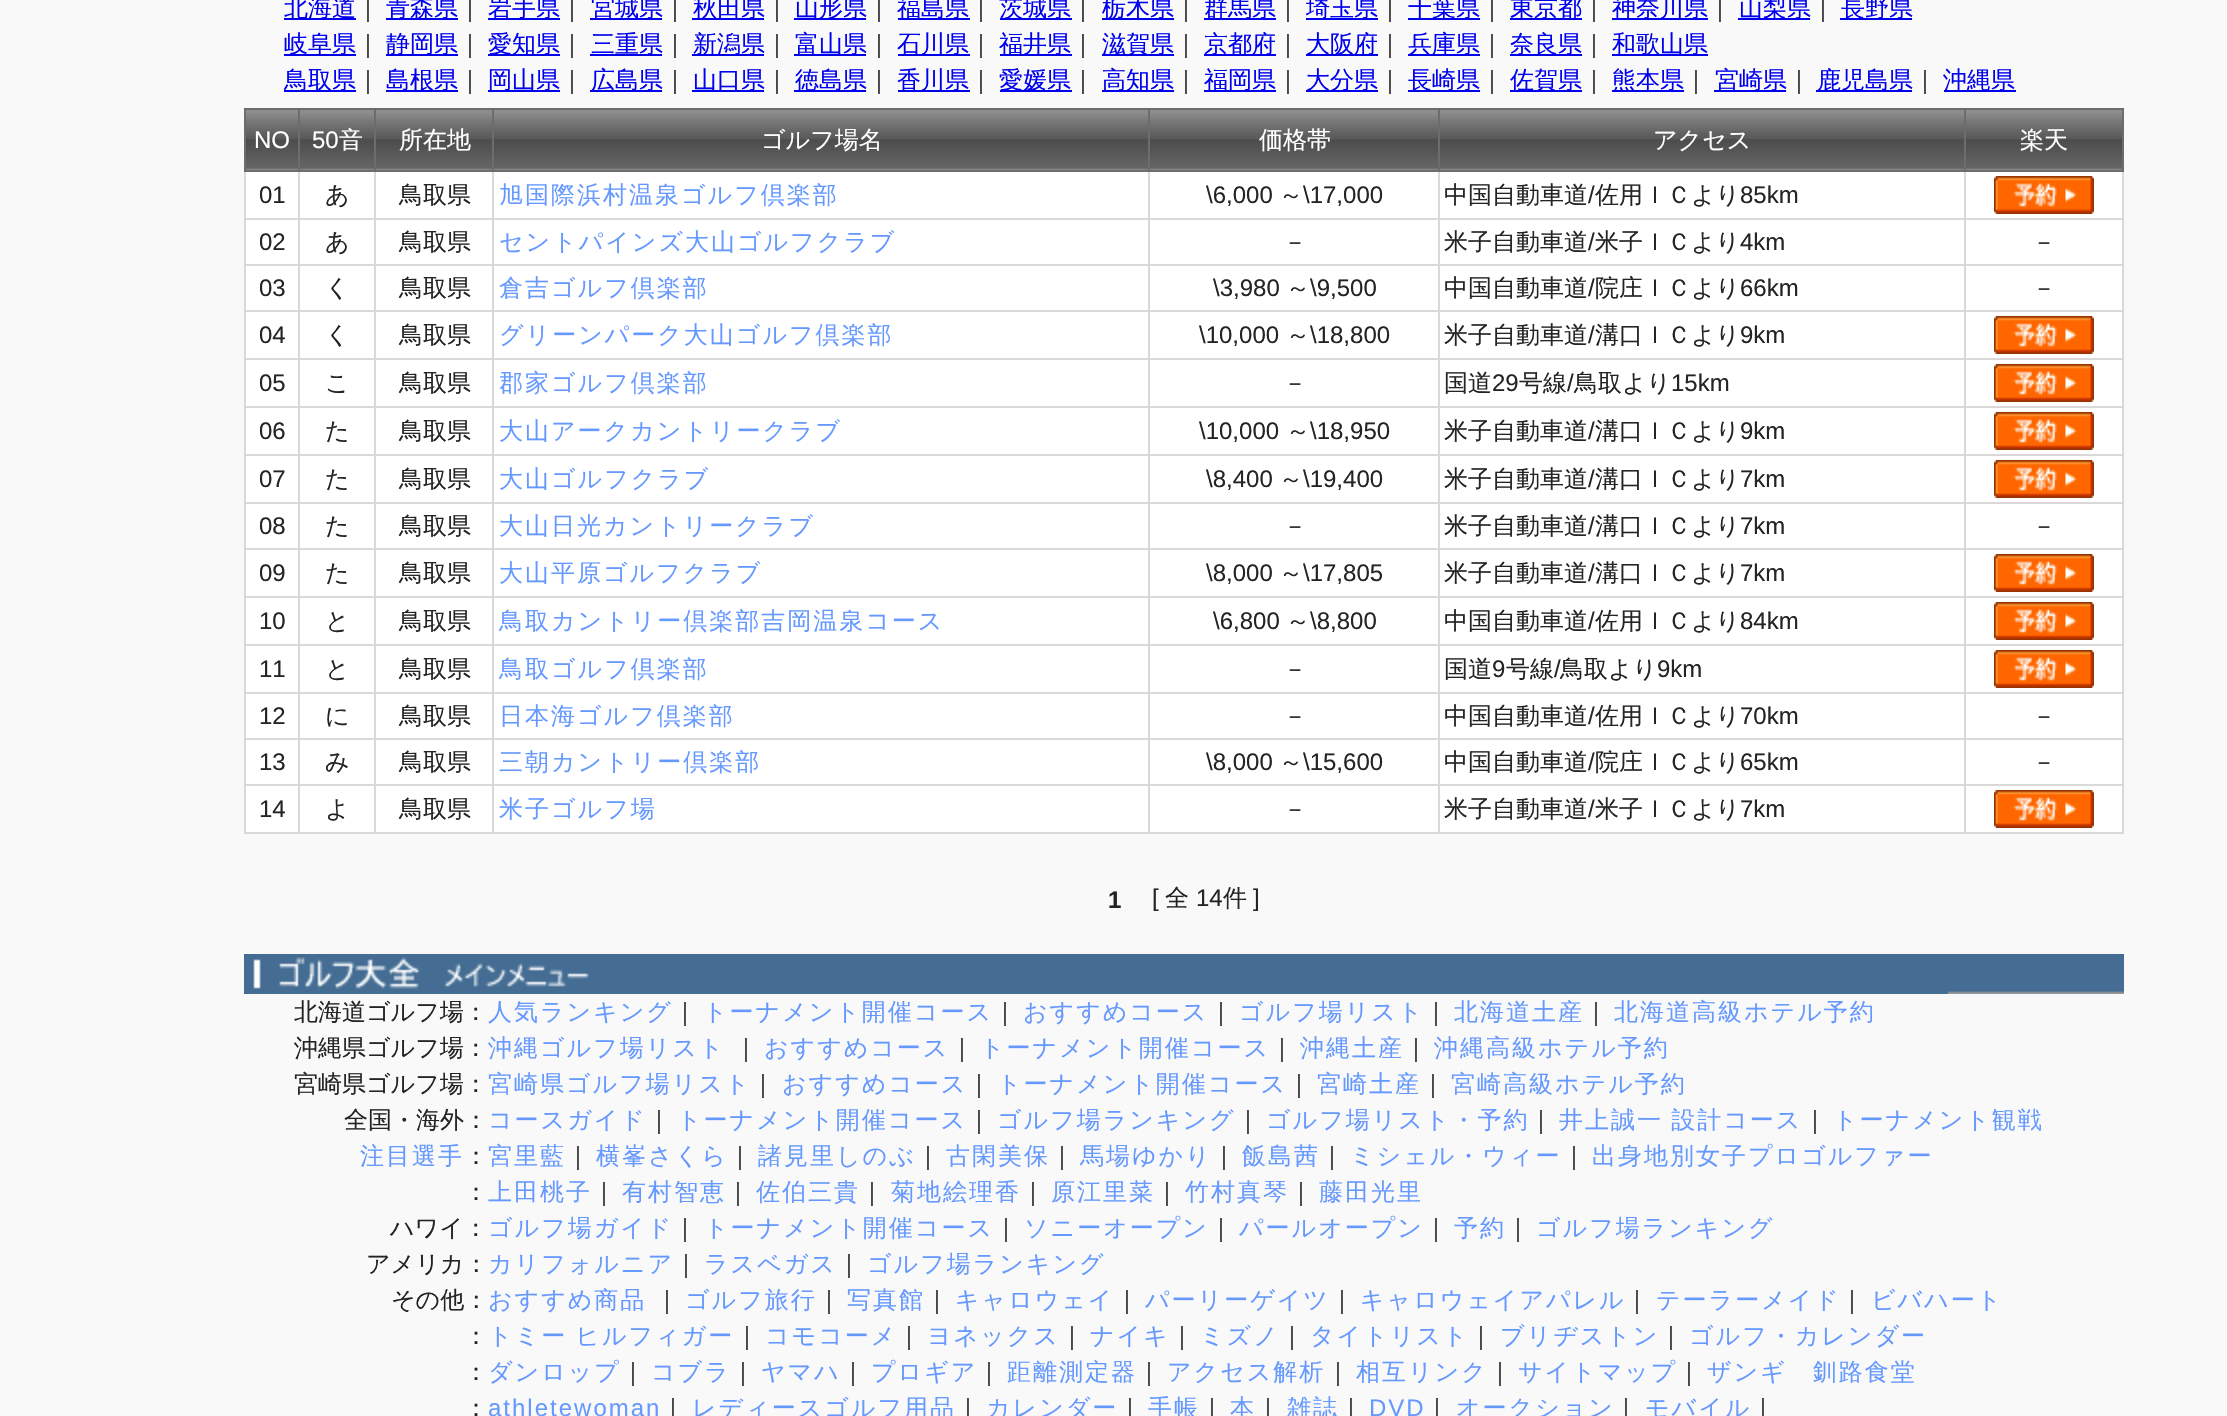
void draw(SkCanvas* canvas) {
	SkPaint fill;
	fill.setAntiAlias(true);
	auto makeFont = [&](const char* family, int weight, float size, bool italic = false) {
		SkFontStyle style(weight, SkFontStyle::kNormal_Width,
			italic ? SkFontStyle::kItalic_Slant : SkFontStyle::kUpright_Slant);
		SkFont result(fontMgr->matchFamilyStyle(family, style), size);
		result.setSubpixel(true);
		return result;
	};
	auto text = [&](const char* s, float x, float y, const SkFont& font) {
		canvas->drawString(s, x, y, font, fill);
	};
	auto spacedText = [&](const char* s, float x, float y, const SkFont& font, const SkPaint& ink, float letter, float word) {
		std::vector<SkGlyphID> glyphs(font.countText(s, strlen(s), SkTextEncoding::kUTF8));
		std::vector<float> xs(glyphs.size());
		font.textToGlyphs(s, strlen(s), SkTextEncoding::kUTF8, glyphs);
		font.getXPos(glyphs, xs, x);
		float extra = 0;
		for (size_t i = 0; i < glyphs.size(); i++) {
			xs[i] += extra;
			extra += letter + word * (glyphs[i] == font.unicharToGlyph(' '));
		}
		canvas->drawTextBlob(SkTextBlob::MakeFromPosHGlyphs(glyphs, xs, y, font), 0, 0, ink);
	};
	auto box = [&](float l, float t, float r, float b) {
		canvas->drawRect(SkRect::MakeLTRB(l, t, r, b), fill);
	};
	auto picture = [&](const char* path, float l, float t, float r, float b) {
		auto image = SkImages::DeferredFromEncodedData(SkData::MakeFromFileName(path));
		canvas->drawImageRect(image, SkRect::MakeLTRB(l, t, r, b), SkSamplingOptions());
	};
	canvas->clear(0xFFF9F9F9);
	fill.setColor(0xFF0000EE);
	box(284, 18, 356, 20);
	box(386, 18, 458, 20);
	box(488, 18, 560, 20);
	box(590, 18, 662, 20);
	box(692, 18, 764, 20);
	box(794, 18, 866, 20);
	box(898, 18, 970, 20);
	box(1000, 18, 1072, 20);
	box(1102, 18, 1174, 20);
	box(1204, 18, 1276, 20);
	box(1306, 18, 1378, 20);
	box(1408, 18, 1480, 20);
	box(1510, 18, 1582, 20);
	box(1612, 18, 1708, 20);
	box(1738, 18, 1810, 20);
	box(1840, 18, 1912, 20);
	box(284, 54, 356, 56);
	box(386, 54, 458, 56);
	box(488, 54, 560, 56);
	box(590, 54, 662, 56);
	box(692, 54, 764, 56);
	box(794, 54, 866, 56);
	box(898, 54, 970, 56);
	box(1000, 54, 1072, 56);
	box(1102, 54, 1174, 56);
	box(1204, 54, 1276, 56);
	box(1306, 54, 1378, 56);
	box(1408, 54, 1480, 56);
	box(1510, 54, 1582, 56);
	box(1612, 54, 1708, 56);
	box(284, 90, 356, 92);
	box(386, 90, 458, 92);
	box(488, 90, 560, 92);
	box(590, 90, 662, 92);
	box(692, 90, 764, 92);
	box(794, 90, 866, 92);
	box(898, 90, 970, 92);
	box(1000, 90, 1072, 92);
	box(1102, 90, 1174, 92);
	box(1204, 90, 1276, 92);
	box(1306, 90, 1378, 92);
	box(1408, 90, 1480, 92);
	box(1510, 90, 1582, 92);
	box(1612, 90, 1684, 92);
	box(1714, 90, 1786, 92);
	box(1816, 90, 1912, 92);
	box(1944, 90, 2016, 92);
	fill.setColor(0xFFFFFFFF);
	box(246, 172, 2122, 832);
	fill.setColor(0xFFD9D9D9);
	box(2122, 172, 2124, 834);
	box(244, 832, 2124, 834);
	box(244, 172, 246, 834);
	picture("image0.png", 246, 110, 298, 170);
	fill.setColor(0xFF6C6C6C);
	box(1964, 108, 2124, 110);
	box(2122, 108, 2124, 172);
	fill.setColor(0xFFD9D9D9);
	box(1964, 218, 2124, 220);
	box(1964, 264, 2124, 266);
	box(1964, 310, 2124, 312);
	box(1964, 358, 2124, 360);
	box(1964, 406, 2124, 408);
	box(1964, 454, 2124, 456);
	box(1964, 502, 2124, 504);
	box(1964, 548, 2124, 550);
	box(1964, 596, 2124, 598);
	box(1964, 644, 2124, 646);
	box(1964, 692, 2124, 694);
	box(1964, 738, 2124, 740);
	box(1964, 784, 2124, 786);
	box(1964, 784, 1966, 834);
	box(1438, 784, 1966, 786);
	box(1964, 738, 1966, 786);
	box(1438, 738, 1966, 740);
	box(1964, 692, 1966, 740);
	box(1438, 692, 1966, 694);
	box(1964, 644, 1966, 694);
	box(1438, 644, 1966, 646);
	box(1964, 596, 1966, 646);
	box(1438, 596, 1966, 598);
	box(1964, 548, 1966, 598);
	box(1438, 548, 1966, 550);
	box(1964, 502, 1966, 550);
	box(1438, 502, 1966, 504);
	box(1964, 454, 1966, 504);
	box(1438, 454, 1966, 456);
	box(1964, 406, 1966, 456);
	box(1438, 406, 1966, 408);
	box(1964, 358, 1966, 408);
	box(1438, 358, 1966, 360);
	box(1964, 310, 1966, 360);
	box(1438, 310, 1966, 312);
	box(1964, 264, 1966, 312);
	box(1438, 264, 1966, 266);
	box(1964, 218, 1966, 266);
	box(1438, 218, 1966, 220);
	box(1964, 170, 1966, 220);
	fill.setColor(0xFF6C6C6C);
	box(1964, 170, 2124, 172);
	box(1964, 108, 1966, 172);
	box(1438, 108, 1966, 110);
	fill.setColor(0xFFD9D9D9);
	box(1438, 784, 1440, 834);
	box(1148, 784, 1440, 786);
	box(1438, 738, 1440, 786);
	box(1148, 738, 1440, 740);
	box(1438, 692, 1440, 740);
	box(1148, 692, 1440, 694);
	box(1438, 644, 1440, 694);
	box(1148, 644, 1440, 646);
	box(1438, 596, 1440, 646);
	box(1148, 596, 1440, 598);
	box(1438, 548, 1440, 598);
	box(1148, 548, 1440, 550);
	box(1438, 502, 1440, 550);
	box(1148, 502, 1440, 504);
	box(1438, 454, 1440, 504);
	box(1148, 454, 1440, 456);
	box(1438, 406, 1440, 456);
	box(1148, 406, 1440, 408);
	box(1438, 358, 1440, 408);
	box(1148, 358, 1440, 360);
	box(1438, 310, 1440, 360);
	box(1148, 310, 1440, 312);
	box(1438, 264, 1440, 312);
	box(1148, 264, 1440, 266);
	box(1438, 218, 1440, 266);
	box(1148, 218, 1440, 220);
	box(1438, 170, 1440, 220);
	fill.setColor(0xFF6C6C6C);
	box(1438, 170, 1966, 172);
	box(1438, 108, 1440, 172);
	box(1148, 108, 1440, 110);
	fill.setColor(0xFFD9D9D9);
	box(1148, 784, 1150, 834);
	box(492, 784, 1150, 786);
	box(1148, 738, 1150, 786);
	box(492, 738, 1150, 740);
	box(1148, 692, 1150, 740);
	box(492, 692, 1150, 694);
	box(1148, 644, 1150, 694);
	box(492, 644, 1150, 646);
	box(1148, 596, 1150, 646);
	box(492, 596, 1150, 598);
	box(1148, 548, 1150, 598);
	box(492, 548, 1150, 550);
	box(1148, 502, 1150, 550);
	box(492, 502, 1150, 504);
	box(1148, 454, 1150, 504);
	box(492, 454, 1150, 456);
	box(1148, 406, 1150, 456);
	box(492, 406, 1150, 408);
	box(1148, 358, 1150, 408);
	box(492, 358, 1150, 360);
	box(1148, 310, 1150, 360);
	box(492, 310, 1150, 312);
	box(1148, 264, 1150, 312);
	box(492, 264, 1150, 266);
	box(1148, 218, 1150, 266);
	box(492, 218, 1150, 220);
	box(1148, 170, 1150, 220);
	fill.setColor(0xFF6C6C6C);
	box(1148, 170, 1440, 172);
	box(1148, 108, 1150, 172);
	box(492, 108, 1150, 110);
	fill.setColor(0xFFD9D9D9);
	box(492, 784, 494, 834);
	box(374, 784, 494, 786);
	box(492, 738, 494, 786);
	box(374, 738, 494, 740);
	box(492, 692, 494, 740);
	box(374, 692, 494, 694);
	box(492, 644, 494, 694);
	box(374, 644, 494, 646);
	box(492, 596, 494, 646);
	box(374, 596, 494, 598);
	box(492, 548, 494, 598);
	box(374, 548, 494, 550);
	box(492, 502, 494, 550);
	box(374, 502, 494, 504);
	box(492, 454, 494, 504);
	box(374, 454, 494, 456);
	box(492, 406, 494, 456);
	box(374, 406, 494, 408);
	box(492, 358, 494, 408);
	box(374, 358, 494, 360);
	box(492, 310, 494, 360);
	box(374, 310, 494, 312);
	box(492, 264, 494, 312);
	box(374, 264, 494, 266);
	box(492, 218, 494, 266);
	box(374, 218, 494, 220);
	box(492, 170, 494, 220);
	fill.setColor(0xFF6C6C6C);
	box(492, 170, 1150, 172);
	box(492, 108, 494, 172);
	box(374, 108, 494, 110);
	fill.setColor(0xFFD9D9D9);
	box(374, 784, 376, 834);
	box(298, 784, 376, 786);
	box(374, 738, 376, 786);
	box(298, 738, 376, 740);
	box(374, 692, 376, 740);
	box(298, 692, 376, 694);
	box(374, 644, 376, 694);
	box(298, 644, 376, 646);
	box(374, 596, 376, 646);
	box(298, 596, 376, 598);
	box(374, 548, 376, 598);
	box(298, 548, 376, 550);
	box(374, 502, 376, 550);
	box(298, 502, 376, 504);
	box(374, 454, 376, 504);
	box(298, 454, 376, 456);
	box(374, 406, 376, 456);
	box(298, 406, 376, 408);
	box(374, 358, 376, 408);
	box(298, 358, 376, 360);
	box(374, 310, 376, 360);
	box(298, 310, 376, 312);
	box(374, 264, 376, 312);
	box(298, 264, 376, 266);
	box(374, 218, 376, 266);
	box(298, 218, 376, 220);
	box(374, 170, 376, 220);
	fill.setColor(0xFF6C6C6C);
	box(374, 170, 494, 172);
	box(374, 108, 376, 172);
	box(298, 108, 376, 110);
	fill.setColor(0xFFD9D9D9);
	box(298, 784, 300, 834);
	box(244, 784, 300, 786);
	box(298, 738, 300, 786);
	box(244, 738, 300, 740);
	box(298, 692, 300, 740);
	box(244, 692, 300, 694);
	box(298, 644, 300, 694);
	box(244, 644, 300, 646);
	box(298, 596, 300, 646);
	box(244, 596, 300, 598);
	box(298, 548, 300, 598);
	box(244, 548, 300, 550);
	box(298, 502, 300, 550);
	box(244, 502, 300, 504);
	box(298, 454, 300, 504);
	box(244, 454, 300, 456);
	box(298, 406, 300, 456);
	box(244, 406, 300, 408);
	box(298, 358, 300, 408);
	box(244, 358, 300, 360);
	box(298, 310, 300, 360);
	box(244, 310, 300, 312);
	box(298, 264, 300, 312);
	box(244, 264, 300, 266);
	box(298, 218, 300, 266);
	box(244, 218, 300, 220);
	box(298, 170, 300, 220);
	fill.setColor(0xFF6C6C6C);
	box(298, 170, 376, 172);
	box(298, 108, 300, 172);
	box(244, 108, 300, 110);
	box(244, 170, 300, 172);
	box(244, 108, 246, 172);
	picture("image1.png", 300, 110, 374, 170);
	picture("image2.png", 376, 110, 492, 170);
	picture("image3.png", 494, 110, 1148, 170);
	picture("image4.png", 1150, 110, 1438, 170);
	picture("image5.png", 1440, 110, 1964, 170);
	picture("image6.png", 1966, 110, 2122, 170);
	picture("image7.png", 1994, 176, 2094, 214);
	picture("image7.png", 1994, 316, 2094, 354);
	picture("image7.png", 1994, 364, 2094, 402);
	picture("image7.png", 1994, 412, 2094, 450);
	picture("image7.png", 1994, 460, 2094, 498);
	picture("image7.png", 1994, 554, 2094, 592);
	picture("image7.png", 1994, 602, 2094, 640);
	picture("image7.png", 1994, 650, 2094, 688);
	picture("image7.png", 1994, 790, 2094, 828);
	picture("image8.png", 244, 954, 2124, 994);
	auto font1 = makeFont("WenQuanYi Zen Hei", 500, 24);
	fill.setColor(0xFF0000EE);
	text("北海道", 284, 16, font1);
	fill.setColor(0xFF242424);
	text("｜", 356, 16, font1);
	fill.setColor(0xFF0000EE);
	text("青森県", 386, 16, font1);
	fill.setColor(0xFF242424);
	text("｜", 458, 16, font1);
	fill.setColor(0xFF0000EE);
	text("岩手県", 488, 16, font1);
	fill.setColor(0xFF242424);
	text("｜", 560, 16, font1);
	fill.setColor(0xFF0000EE);
	text("宮城県", 591, 16, font1);
	fill.setColor(0xFF242424);
	text("｜", 663, 16, font1);
	fill.setColor(0xFF0000EE);
	text("秋田県", 693, 16, font1);
	fill.setColor(0xFF242424);
	text("｜", 765, 16, font1);
	fill.setColor(0xFF0000EE);
	text("山形県", 795, 16, font1);
	fill.setColor(0xFF242424);
	text("｜", 867, 16, font1);
	fill.setColor(0xFF0000EE);
	text("福島県", 897, 16, font1);
	fill.setColor(0xFF242424);
	text("｜", 969, 16, font1);
	fill.setColor(0xFF0000EE);
	text("茨城県", 999, 16, font1);
	fill.setColor(0xFF242424);
	text("｜", 1071, 16, font1);
	fill.setColor(0xFF0000EE);
	text("栃木県", 1102, 16, font1);
	fill.setColor(0xFF242424);
	text("｜", 1174, 16, font1);
	fill.setColor(0xFF0000EE);
	text("群馬県", 1204, 16, font1);
	fill.setColor(0xFF242424);
	text("｜", 1276, 16, font1);
	fill.setColor(0xFF0000EE);
	text("埼玉県", 1306, 16, font1);
	fill.setColor(0xFF242424);
	text("｜", 1378, 16, font1);
	fill.setColor(0xFF0000EE);
	text("千葉県", 1408, 16, font1);
	fill.setColor(0xFF242424);
	text("｜", 1480, 16, font1);
	fill.setColor(0xFF0000EE);
	text("東京都", 1510, 16, font1);
	fill.setColor(0xFF242424);
	text("｜", 1582, 16, font1);
	fill.setColor(0xFF0000EE);
	text("神奈川県", 1612, 16, font1);
	fill.setColor(0xFF242424);
	text("｜", 1708, 16, font1);
	fill.setColor(0xFF0000EE);
	text("山梨県", 1739, 16, font1);
	fill.setColor(0xFF242424);
	text("｜", 1811, 16, font1);
	fill.setColor(0xFF0000EE);
	text("長野県", 1841, 16, font1);
	text("岐阜県", 284, 52, font1);
	fill.setColor(0xFF242424);
	text("｜", 356, 52, font1);
	fill.setColor(0xFF0000EE);
	text("静岡県", 386, 52, font1);
	fill.setColor(0xFF242424);
	text("｜", 458, 52, font1);
	fill.setColor(0xFF0000EE);
	text("愛知県", 488, 52, font1);
	fill.setColor(0xFF242424);
	text("｜", 560, 52, font1);
	fill.setColor(0xFF0000EE);
	text("三重県", 591, 52, font1);
	fill.setColor(0xFF242424);
	text("｜", 663, 52, font1);
	fill.setColor(0xFF0000EE);
	text("新潟県", 693, 52, font1);
	fill.setColor(0xFF242424);
	text("｜", 765, 52, font1);
	fill.setColor(0xFF0000EE);
	text("富山県", 795, 52, font1);
	fill.setColor(0xFF242424);
	text("｜", 867, 52, font1);
	fill.setColor(0xFF0000EE);
	text("石川県", 897, 52, font1);
	fill.setColor(0xFF242424);
	text("｜", 969, 52, font1);
	fill.setColor(0xFF0000EE);
	text("福井県", 999, 52, font1);
	fill.setColor(0xFF242424);
	text("｜", 1071, 52, font1);
	fill.setColor(0xFF0000EE);
	text("滋賀県", 1102, 52, font1);
	fill.setColor(0xFF242424);
	text("｜", 1174, 52, font1);
	fill.setColor(0xFF0000EE);
	text("京都府", 1204, 52, font1);
	fill.setColor(0xFF242424);
	text("｜", 1276, 52, font1);
	fill.setColor(0xFF0000EE);
	text("大阪府", 1306, 52, font1);
	fill.setColor(0xFF242424);
	text("｜", 1378, 52, font1);
	fill.setColor(0xFF0000EE);
	text("兵庫県", 1408, 52, font1);
	fill.setColor(0xFF242424);
	text("｜", 1480, 52, font1);
	fill.setColor(0xFF0000EE);
	text("奈良県", 1510, 52, font1);
	fill.setColor(0xFF242424);
	text("｜", 1582, 52, font1);
	fill.setColor(0xFF0000EE);
	text("和歌山県", 1612, 52, font1);
	text("鳥取県", 284, 88, font1);
	fill.setColor(0xFF242424);
	text("｜", 356, 88, font1);
	fill.setColor(0xFF0000EE);
	text("島根県", 386, 88, font1);
	fill.setColor(0xFF242424);
	text("｜", 458, 88, font1);
	fill.setColor(0xFF0000EE);
	text("岡山県", 488, 88, font1);
	fill.setColor(0xFF242424);
	text("｜", 560, 88, font1);
	fill.setColor(0xFF0000EE);
	text("広島県", 591, 88, font1);
	fill.setColor(0xFF242424);
	text("｜", 663, 88, font1);
	fill.setColor(0xFF0000EE);
	text("山口県", 693, 88, font1);
	fill.setColor(0xFF242424);
	text("｜", 765, 88, font1);
	fill.setColor(0xFF0000EE);
	text("徳島県", 795, 88, font1);
	fill.setColor(0xFF242424);
	text("｜", 867, 88, font1);
	fill.setColor(0xFF0000EE);
	text("香川県", 897, 88, font1);
	fill.setColor(0xFF242424);
	text("｜", 969, 88, font1);
	fill.setColor(0xFF0000EE);
	text("愛媛県", 999, 88, font1);
	fill.setColor(0xFF242424);
	text("｜", 1071, 88, font1);
	fill.setColor(0xFF0000EE);
	text("高知県", 1102, 88, font1);
	fill.setColor(0xFF242424);
	text("｜", 1174, 88, font1);
	fill.setColor(0xFF0000EE);
	text("福岡県", 1204, 88, font1);
	fill.setColor(0xFF242424);
	text("｜", 1276, 88, font1);
	fill.setColor(0xFF0000EE);
	text("大分県", 1306, 88, font1);
	fill.setColor(0xFF242424);
	text("｜", 1378, 88, font1);
	fill.setColor(0xFF0000EE);
	text("長崎県", 1408, 88, font1);
	fill.setColor(0xFF242424);
	text("｜", 1480, 88, font1);
	fill.setColor(0xFF0000EE);
	text("佐賀県", 1510, 88, font1);
	fill.setColor(0xFF242424);
	text("｜", 1582, 88, font1);
	fill.setColor(0xFF0000EE);
	text("熊本県", 1612, 88, font1);
	fill.setColor(0xFF242424);
	text("｜", 1684, 88, font1);
	fill.setColor(0xFF0000EE);
	text("宮崎県", 1715, 88, font1);
	fill.setColor(0xFF242424);
	text("｜", 1787, 88, font1);
	fill.setColor(0xFF0000EE);
	text("鹿児島県", 1817, 88, font1);
	fill.setColor(0xFF242424);
	text("｜", 1913, 88, font1);
	fill.setColor(0xFF0000EE);
	text("沖縄県", 1943, 88, font1);
	auto font2 = makeFont("Liberation Sans", 400, 24);
	fill.setColor(0xFFFFFFFF);
	text("NO", 254, 148, font2);
	text("50", 312, 148, font2);
	text("音", 339, 148, font1);
	text("所在地", 399, 148, font1);
	text("ゴルフ場名", 761, 148, font1);
	text("価格帯", 1259, 148, font1);
	text("アクセス", 1653, 148, font1);
	text("楽天", 2020, 148, font1);
	fill.setColor(0xFF242424);
	text("01", 259, 203, font2);
	text("あ", 325, 203, font1);
	text("鳥取県", 399, 203, font1);
	fill.setColor(0xFF6699FF);
	spacedText("旭国際浜村温泉ゴルフ倶楽部", 499, 203, font1, fill, 2, 0);
	fill.setColor(0xFF242424);
	text("\\6,000", 1206, 203, font2);
	text("～", 1279, 203, font1);
	text("\\17,000", 1303, 203, font2);
	text("中国自動車道", 1444, 203, font1);
	text("/", 1588, 203, font2);
	text("佐用ＩＣより", 1595, 203, font1);
	text("85km", 1740, 203, font2);
	text("02", 259, 250, font2);
	text("あ", 325, 250, font1);
	text("鳥取県", 399, 250, font1);
	fill.setColor(0xFF6699FF);
	spacedText("セントパインズ大山ゴルフクラブ", 499, 250, font1, fill, 2, 0);
	fill.setColor(0xFF242424);
	text("－", 1283, 250, font1);
	text("米子自動車道", 1444, 250, font1);
	text("/", 1588, 250, font2);
	text("米子ＩＣより", 1595, 250, font1);
	text("4km", 1740, 250, font2);
	text("－", 2032, 250, font1);
	text("03", 259, 296, font2);
	text("く", 325, 296, font1);
	text("鳥取県", 399, 296, font1);
	fill.setColor(0xFF6699FF);
	spacedText("倉吉ゴルフ倶楽部", 499, 296, font1, fill, 2, 0);
	fill.setColor(0xFF242424);
	text("\\3,980", 1213, 296, font2);
	text("～", 1286, 296, font1);
	text("\\9,500", 1310, 296, font2);
	text("中国自動車道", 1444, 296, font1);
	text("/", 1588, 296, font2);
	text("院庄ＩＣより", 1595, 296, font1);
	text("66km", 1740, 296, font2);
	text("－", 2032, 296, font1);
	text("04", 259, 343, font2);
	text("く", 325, 343, font1);
	text("鳥取県", 399, 343, font1);
	fill.setColor(0xFF6699FF);
	spacedText("グリーンパーク大山ゴルフ倶楽部", 499, 343, font1, fill, 2, 0);
	fill.setColor(0xFF242424);
	text("\\10,000", 1199, 343, font2);
	text("～", 1286, 343, font1);
	text("\\18,800", 1310, 343, font2);
	text("米子自動車道", 1444, 343, font1);
	text("/", 1588, 343, font2);
	text("溝口ＩＣより", 1595, 343, font1);
	text("9km", 1740, 343, font2);
	text("05", 259, 391, font2);
	text("こ", 325, 391, font1);
	text("鳥取県", 399, 391, font1);
	fill.setColor(0xFF6699FF);
	spacedText("郡家ゴルフ倶楽部", 499, 391, font1, fill, 2, 0);
	fill.setColor(0xFF242424);
	text("－", 1283, 391, font1);
	text("国道", 1444, 391, font1);
	text("29", 1492, 391, font2);
	text("号線", 1519, 391, font1);
	text("/", 1567, 391, font2);
	text("鳥取より", 1574, 391, font1);
	text("15km", 1671, 391, font2);
	text("06", 259, 439, font2);
	text("た", 325, 439, font1);
	text("鳥取県", 399, 439, font1);
	fill.setColor(0xFF6699FF);
	spacedText("大山アークカントリークラブ", 499, 439, font1, fill, 2, 0);
	fill.setColor(0xFF242424);
	text("\\10,000", 1199, 439, font2);
	text("～", 1286, 439, font1);
	text("\\18,950", 1310, 439, font2);
	text("米子自動車道", 1444, 439, font1);
	text("/", 1588, 439, font2);
	text("溝口ＩＣより", 1595, 439, font1);
	text("9km", 1740, 439, font2);
	text("07", 259, 487, font2);
	text("た", 325, 487, font1);
	text("鳥取県", 399, 487, font1);
	fill.setColor(0xFF6699FF);
	spacedText("大山ゴルフクラブ", 499, 487, font1, fill, 2, 0);
	fill.setColor(0xFF242424);
	text("\\8,400", 1206, 487, font2);
	text("～", 1279, 487, font1);
	text("\\19,400", 1303, 487, font2);
	text("米子自動車道", 1444, 487, font1);
	text("/", 1588, 487, font2);
	text("溝口ＩＣより", 1595, 487, font1);
	text("7km", 1740, 487, font2);
	text("08", 259, 534, font2);
	text("た", 325, 534, font1);
	text("鳥取県", 399, 534, font1);
	fill.setColor(0xFF6699FF);
	spacedText("大山日光カントリークラブ", 499, 534, font1, fill, 2, 0);
	fill.setColor(0xFF242424);
	text("－", 1283, 534, font1);
	text("米子自動車道", 1444, 534, font1);
	text("/", 1588, 534, font2);
	text("溝口ＩＣより", 1595, 534, font1);
	text("7km", 1740, 534, font2);
	text("－", 2032, 534, font1);
	text("09", 259, 581, font2);
	text("た", 325, 581, font1);
	text("鳥取県", 399, 581, font1);
	fill.setColor(0xFF6699FF);
	spacedText("大山平原ゴルフクラブ", 499, 581, font1, fill, 2, 0);
	fill.setColor(0xFF242424);
	text("\\8,000", 1206, 581, font2);
	text("～", 1279, 581, font1);
	text("\\17,805", 1303, 581, font2);
	text("米子自動車道", 1444, 581, font1);
	text("/", 1588, 581, font2);
	text("溝口ＩＣより", 1595, 581, font1);
	text("7km", 1740, 581, font2);
	text("10", 259, 629, font2);
	text("と", 325, 629, font1);
	text("鳥取県", 399, 629, font1);
	fill.setColor(0xFF6699FF);
	spacedText("鳥取カントリー倶楽部吉岡温泉コース", 499, 629, font1, fill, 2, 0);
	fill.setColor(0xFF242424);
	text("\\6,800", 1213, 629, font2);
	text("～", 1286, 629, font1);
	text("\\8,800", 1310, 629, font2);
	text("中国自動車道", 1444, 629, font1);
	text("/", 1588, 629, font2);
	text("佐用ＩＣより", 1595, 629, font1);
	text("84km", 1740, 629, font2);
	text("11", 259, 677, font2);
	text("と", 325, 677, font1);
	text("鳥取県", 399, 677, font1);
	fill.setColor(0xFF6699FF);
	spacedText("鳥取ゴルフ倶楽部", 499, 677, font1, fill, 2, 0);
	fill.setColor(0xFF242424);
	text("－", 1283, 677, font1);
	text("国道", 1444, 677, font1);
	text("9", 1492, 677, font2);
	text("号線", 1506, 677, font1);
	text("/", 1554, 677, font2);
	text("鳥取より", 1560, 677, font1);
	text("9km", 1657, 677, font2);
	text("12", 259, 724, font2);
	text("に", 325, 724, font1);
	text("鳥取県", 399, 724, font1);
	fill.setColor(0xFF6699FF);
	spacedText("日本海ゴルフ倶楽部", 499, 724, font1, fill, 2, 0);
	fill.setColor(0xFF242424);
	text("－", 1283, 724, font1);
	text("中国自動車道", 1444, 724, font1);
	text("/", 1588, 724, font2);
	text("佐用ＩＣより", 1595, 724, font1);
	text("70km", 1740, 724, font2);
	text("－", 2032, 724, font1);
	text("13", 259, 770, font2);
	text("み", 325, 770, font1);
	text("鳥取県", 399, 770, font1);
	fill.setColor(0xFF6699FF);
	spacedText("三朝カントリー倶楽部", 499, 770, font1, fill, 2, 0);
	fill.setColor(0xFF242424);
	text("\\8,000", 1206, 770, font2);
	text("～", 1279, 770, font1);
	text("\\15,600", 1303, 770, font2);
	text("中国自動車道", 1444, 770, font1);
	text("/", 1588, 770, font2);
	text("院庄ＩＣより", 1595, 770, font1);
	text("65km", 1740, 770, font2);
	text("－", 2032, 770, font1);
	text("14", 259, 817, font2);
	text("よ", 325, 817, font1);
	text("鳥取県", 399, 817, font1);
	fill.setColor(0xFF6699FF);
	spacedText("米子ゴルフ場", 499, 817, font1, fill, 2, 0);
	fill.setColor(0xFF242424);
	text("－", 1283, 817, font1);
	text("米子自動車道", 1444, 817, font1);
	text("/", 1588, 817, font2);
	text("米子ＩＣより", 1595, 817, font1);
	text("7km", 1740, 817, font2);
	auto font3 = makeFont("Liberation Sans", 700, 24);
	text("1", 1108, 908, font3);
	text("[", 1152, 906, font2);
	text("全", 1165, 906, font1);
	text("14", 1196, 906, font2);
	text("件", 1223, 906, font1);
	text("]", 1253, 906, font2);
	text("北海道ゴルフ場：", 294, 1020, font1);
	fill.setColor(0xFF6699FF);
	spacedText("人気ランキング", 488, 1020, font1, fill, 2, 0);
	fill.setColor(0xFF242424);
	text("｜", 673, 1020, font1);
	fill.setColor(0xFF6699FF);
	spacedText("トーナメント開催コース", 703, 1020, font1, fill, 2, 0);
	fill.setColor(0xFF242424);
	text("｜", 993, 1020, font1);
	fill.setColor(0xFF6699FF);
	spacedText("おすすめコース", 1023, 1020, font1, fill, 2, 0);
	fill.setColor(0xFF242424);
	text("｜", 1209, 1020, font1);
	fill.setColor(0xFF6699FF);
	spacedText("ゴルフ場リスト", 1239, 1020, font1, fill, 2, 0);
	fill.setColor(0xFF242424);
	text("｜", 1424, 1020, font1);
	fill.setColor(0xFF6699FF);
	spacedText("北海道土産", 1454, 1020, font1, fill, 2, 0);
	fill.setColor(0xFF242424);
	text("｜", 1584, 1020, font1);
	fill.setColor(0xFF6699FF);
	spacedText("北海道高級ホテル予約", 1614, 1020, font1, fill, 2, 0);
	fill.setColor(0xFF242424);
	text("沖縄県ゴルフ場：", 294, 1056, font1);
	fill.setColor(0xFF6699FF);
	spacedText("沖縄ゴルフ場リスト", 488, 1056, font1, fill, 2, 0);
	fill.setColor(0xFF242424);
	text("｜", 734, 1056, font1);
	fill.setColor(0xFF6699FF);
	spacedText("おすすめコース", 764, 1056, font1, fill, 2, 0);
	fill.setColor(0xFF242424);
	text("｜", 950, 1056, font1);
	fill.setColor(0xFF6699FF);
	spacedText("トーナメント開催コース", 980, 1056, font1, fill, 2, 0);
	fill.setColor(0xFF242424);
	text("｜", 1270, 1056, font1);
	fill.setColor(0xFF6699FF);
	spacedText("沖縄土産", 1300, 1056, font1, fill, 2, 0);
	fill.setColor(0xFF242424);
	text("｜", 1404, 1056, font1);
	fill.setColor(0xFF6699FF);
	spacedText("沖縄高級ホテル予約", 1434, 1056, font1, fill, 2, 0);
	fill.setColor(0xFF242424);
	text("宮崎県ゴルフ場：", 294, 1092, font1);
	fill.setColor(0xFF6699FF);
	spacedText("宮崎県ゴルフ場リスト", 488, 1092, font1, fill, 2, 0);
	fill.setColor(0xFF242424);
	text("｜", 751, 1092, font1);
	fill.setColor(0xFF6699FF);
	spacedText("おすすめコース", 782, 1092, font1, fill, 2, 0);
	fill.setColor(0xFF242424);
	text("｜", 967, 1092, font1);
	fill.setColor(0xFF6699FF);
	spacedText("トーナメント開催コース", 997, 1092, font1, fill, 2, 0);
	fill.setColor(0xFF242424);
	text("｜", 1287, 1092, font1);
	fill.setColor(0xFF6699FF);
	spacedText("宮崎土産", 1317, 1092, font1, fill, 2, 0);
	fill.setColor(0xFF242424);
	text("｜", 1421, 1092, font1);
	fill.setColor(0xFF6699FF);
	spacedText("宮崎高級ホテル予約", 1451, 1092, font1, fill, 2, 0);
	fill.setColor(0xFF242424);
	text("全国・海外：", 344, 1128, font1);
	fill.setColor(0xFF6699FF);
	spacedText("コースガイド", 488, 1128, font1, fill, 2, 0);
	fill.setColor(0xFF242424);
	text("｜", 647, 1128, font1);
	fill.setColor(0xFF6699FF);
	spacedText("トーナメント開催コース", 677, 1128, font1, fill, 2, 0);
	fill.setColor(0xFF242424);
	text("｜", 967, 1128, font1);
	fill.setColor(0xFF6699FF);
	spacedText("ゴルフ場ランキング", 997, 1128, font1, fill, 2, 0);
	fill.setColor(0xFF242424);
	text("｜", 1236, 1128, font1);
	fill.setColor(0xFF6699FF);
	spacedText("ゴルフ場リスト・予約", 1266, 1128, font1, fill, 2, 0);
	fill.setColor(0xFF242424);
	text("｜", 1529, 1128, font1);
	fill.setColor(0xFF6699FF);
	spacedText("井上誠一 設計コース", 1559, 1128, font1, fill, 2, -1);
	fill.setColor(0xFF242424);
	text("｜", 1803, 1128, font1);
	fill.setColor(0xFF6699FF);
	spacedText("トーナメント観戦", 1833, 1128, font1, fill, 2, 0);
	spacedText("注目選手", 360, 1164, font1, fill, 2, 0);
	fill.setColor(0xFF242424);
	text("：", 464, 1164, font1);
	fill.setColor(0xFF6699FF);
	spacedText("宮里藍", 488, 1164, font1, fill, 2, 0);
	fill.setColor(0xFF242424);
	text("｜", 566, 1164, font1);
	fill.setColor(0xFF6699FF);
	spacedText("横峯さくら", 596, 1164, font1, fill, 2, 0);
	fill.setColor(0xFF242424);
	text("｜", 728, 1164, font1);
	fill.setColor(0xFF6699FF);
	spacedText("諸見里しのぶ", 758, 1164, font1, fill, 2, 0);
	fill.setColor(0xFF242424);
	text("｜", 916, 1164, font1);
	fill.setColor(0xFF6699FF);
	spacedText("古閑美保", 946, 1164, font1, fill, 2, 0);
	fill.setColor(0xFF242424);
	text("｜", 1050, 1164, font1);
	fill.setColor(0xFF6699FF);
	spacedText("馬場ゆかり", 1080, 1164, font1, fill, 2, 0);
	fill.setColor(0xFF242424);
	text("｜", 1212, 1164, font1);
	fill.setColor(0xFF6699FF);
	spacedText("飯島茜", 1242, 1164, font1, fill, 2, 0);
	fill.setColor(0xFF242424);
	text("｜", 1320, 1164, font1);
	fill.setColor(0xFF6699FF);
	spacedText("ミシェル・ウィー", 1350, 1164, font1, fill, 2, 0);
	fill.setColor(0xFF242424);
	text("｜", 1562, 1164, font1);
	fill.setColor(0xFF6699FF);
	spacedText("出身地別女子プロゴルファー", 1592, 1164, font1, fill, 2, 0);
	fill.setColor(0xFF242424);
	text("：", 464, 1200, font1);
	fill.setColor(0xFF6699FF);
	spacedText("上田桃子", 488, 1200, font1, fill, 2, 0);
	fill.setColor(0xFF242424);
	text("｜", 592, 1200, font1);
	fill.setColor(0xFF6699FF);
	spacedText("有村智恵", 622, 1200, font1, fill, 2, 0);
	fill.setColor(0xFF242424);
	text("｜", 726, 1200, font1);
	fill.setColor(0xFF6699FF);
	spacedText("佐伯三貴", 756, 1200, font1, fill, 2, 0);
	fill.setColor(0xFF242424);
	text("｜", 860, 1200, font1);
	fill.setColor(0xFF6699FF);
	spacedText("菊地絵理香", 891, 1200, font1, fill, 2, 0);
	fill.setColor(0xFF242424);
	text("｜", 1021, 1200, font1);
	fill.setColor(0xFF6699FF);
	spacedText("原江里菜", 1051, 1200, font1, fill, 2, 0);
	fill.setColor(0xFF242424);
	text("｜", 1155, 1200, font1);
	fill.setColor(0xFF6699FF);
	spacedText("竹村真琴", 1185, 1200, font1, fill, 2, 0);
	fill.setColor(0xFF242424);
	text("｜", 1289, 1200, font1);
	fill.setColor(0xFF6699FF);
	spacedText("藤田光里", 1319, 1200, font1, fill, 2, 0);
	fill.setColor(0xFF242424);
	text("ハワイ：", 390, 1236, font1);
	fill.setColor(0xFF6699FF);
	spacedText("ゴルフ場ガイド", 488, 1236, font1, fill, 2, 0);
	fill.setColor(0xFF242424);
	text("｜", 673, 1236, font1);
	fill.setColor(0xFF6699FF);
	spacedText("トーナメント開催コース", 704, 1236, font1, fill, 2, 0);
	fill.setColor(0xFF242424);
	text("｜", 994, 1236, font1);
	fill.setColor(0xFF6699FF);
	spacedText("ソニーオープン", 1024, 1236, font1, fill, 2, 0);
	fill.setColor(0xFF242424);
	text("｜", 1209, 1236, font1);
	fill.setColor(0xFF6699FF);
	spacedText("パールオープン", 1239, 1236, font1, fill, 2, 0);
	fill.setColor(0xFF242424);
	text("｜", 1424, 1236, font1);
	fill.setColor(0xFF6699FF);
	spacedText("予約", 1454, 1236, font1, fill, 2, 0);
	fill.setColor(0xFF242424);
	text("｜", 1506, 1236, font1);
	fill.setColor(0xFF6699FF);
	spacedText("ゴルフ場ランキング", 1536, 1236, font1, fill, 2, 0);
	fill.setColor(0xFF242424);
	text("アメリカ：", 366, 1272, font1);
	fill.setColor(0xFF6699FF);
	spacedText("カリフォルニア", 488, 1272, font1, fill, 2, 0);
	fill.setColor(0xFF242424);
	text("｜", 674, 1272, font1);
	fill.setColor(0xFF6699FF);
	spacedText("ラスベガス", 704, 1272, font1, fill, 2, 0);
	fill.setColor(0xFF242424);
	text("｜", 837, 1272, font1);
	fill.setColor(0xFF6699FF);
	spacedText("ゴルフ場ランキング", 867, 1272, font1, fill, 2, 0);
	fill.setColor(0xFF242424);
	text("その他：", 391, 1308, font1);
	fill.setColor(0xFF6699FF);
	spacedText("おすすめ商品", 488, 1308, font1, fill, 2, 0);
	fill.setColor(0xFF242424);
	text("｜", 655, 1308, font1);
	fill.setColor(0xFF6699FF);
	spacedText("ゴルフ旅行", 685, 1308, font1, fill, 2, 0);
	fill.setColor(0xFF242424);
	text("｜", 817, 1308, font1);
	fill.setColor(0xFF6699FF);
	spacedText("写真館", 847, 1308, font1, fill, 2, 0);
	fill.setColor(0xFF242424);
	text("｜", 925, 1308, font1);
	fill.setColor(0xFF6699FF);
	spacedText("キャロウェイ", 955, 1308, font1, fill, 2, 0);
	fill.setColor(0xFF242424);
	text("｜", 1115, 1308, font1);
	fill.setColor(0xFF6699FF);
	spacedText("パーリーゲイツ", 1145, 1308, font1, fill, 2, 0);
	fill.setColor(0xFF242424);
	text("｜", 1330, 1308, font1);
	fill.setColor(0xFF6699FF);
	spacedText("キャロウェイアパレル", 1360, 1308, font1, fill, 2, 0);
	fill.setColor(0xFF242424);
	text("｜", 1625, 1308, font1);
	fill.setColor(0xFF6699FF);
	spacedText("テーラーメイド", 1656, 1308, font1, fill, 2, 0);
	fill.setColor(0xFF242424);
	text("｜", 1840, 1308, font1);
	fill.setColor(0xFF6699FF);
	spacedText("ビバハート", 1871, 1308, font1, fill, 2, 0);
	fill.setColor(0xFF242424);
	text("：", 464, 1344, font1);
	fill.setColor(0xFF6699FF);
	spacedText("トミー ヒルフィガー", 488, 1344, font1, fill, 2, -1);
	fill.setColor(0xFF242424);
	text("｜", 735, 1344, font1);
	fill.setColor(0xFF6699FF);
	spacedText("コモコーメ", 765, 1344, font1, fill, 2, 0);
	fill.setColor(0xFF242424);
	text("｜", 897, 1344, font1);
	fill.setColor(0xFF6699FF);
	spacedText("ヨネックス", 927, 1344, font1, fill, 2, 0);
	fill.setColor(0xFF242424);
	text("｜", 1060, 1344, font1);
	fill.setColor(0xFF6699FF);
	spacedText("ナイキ", 1090, 1344, font1, fill, 2, 0);
	fill.setColor(0xFF242424);
	text("｜", 1170, 1344, font1);
	fill.setColor(0xFF6699FF);
	spacedText("ミズノ", 1200, 1344, font1, fill, 2, 0);
	fill.setColor(0xFF242424);
	text("｜", 1280, 1344, font1);
	fill.setColor(0xFF6699FF);
	spacedText("タイトリスト", 1310, 1344, font1, fill, 2, 0);
	fill.setColor(0xFF242424);
	text("｜", 1469, 1344, font1);
	fill.setColor(0xFF6699FF);
	spacedText("ブリヂストン", 1500, 1344, font1, fill, 2, 0);
	fill.setColor(0xFF242424);
	text("｜", 1659, 1344, font1);
	fill.setColor(0xFF6699FF);
	spacedText("ゴルフ・カレンダー", 1689, 1344, font1, fill, 2, 0);
	fill.setColor(0xFF242424);
	text("：", 464, 1380, font1);
	fill.setColor(0xFF6699FF);
	spacedText("ダンロップ", 488, 1380, font1, fill, 2, 0);
	fill.setColor(0xFF242424);
	text("｜", 621, 1380, font1);
	fill.setColor(0xFF6699FF);
	spacedText("コブラ", 651, 1380, font1, fill, 2, 0);
	fill.setColor(0xFF242424);
	text("｜", 731, 1380, font1);
	fill.setColor(0xFF6699FF);
	spacedText("ヤマハ", 761, 1380, font1, fill, 2, 0);
	fill.setColor(0xFF242424);
	text("｜", 841, 1380, font1);
	fill.setColor(0xFF6699FF);
	spacedText("プロギア", 871, 1380, font1, fill, 2, 0);
	fill.setColor(0xFF242424);
	text("｜", 977, 1380, font1);
	fill.setColor(0xFF6699FF);
	spacedText("距離測定器", 1007, 1380, font1, fill, 2, 0);
	fill.setColor(0xFF242424);
	text("｜", 1137, 1380, font1);
	fill.setColor(0xFF6699FF);
	spacedText("アクセス解析", 1167, 1380, font1, fill, 2, 0);
	fill.setColor(0xFF242424);
	text("｜", 1326, 1380, font1);
	fill.setColor(0xFF6699FF);
	spacedText("相互リンク", 1356, 1380, font1, fill, 2, 0);
	fill.setColor(0xFF242424);
	text("｜", 1488, 1380, font1);
	fill.setColor(0xFF6699FF);
	spacedText("サイトマップ", 1518, 1380, font1, fill, 2, 0);
	fill.setColor(0xFF242424);
	text("｜", 1677, 1380, font1);
	fill.setColor(0xFF6699FF);
	spacedText("ザンギ　釧路食堂", 1707, 1380, font1, fill, 2, 0);
	fill.setColor(0xFF242424);
	text("：", 464, 1416, font1);
	fill.setColor(0xFF6699FF);
	spacedText("athletewoman", 488, 1416, font2, fill, 2, 0);
	fill.setColor(0xFF242424);
	text("｜", 661, 1416, font1);
	fill.setColor(0xFF6699FF);
	spacedText("レディースゴルフ用品", 692, 1416, font1, fill, 2, 0);
	fill.setColor(0xFF242424);
	text("｜", 956, 1416, font1);
	fill.setColor(0xFF6699FF);
	spacedText("カレンダー", 986, 1416, font1, fill, 2, 0);
	fill.setColor(0xFF242424);
	text("｜", 1118, 1416, font1);
	fill.setColor(0xFF6699FF);
	spacedText("手帳", 1148, 1416, font1, fill, 2, 0);
	fill.setColor(0xFF242424);
	text("｜", 1200, 1416, font1);
	fill.setColor(0xFF6699FF);
	spacedText("本", 1230, 1416, font1, fill, 2, 0);
	fill.setColor(0xFF242424);
	text("｜", 1256, 1416, font1);
	fill.setColor(0xFF6699FF);
	spacedText("雑誌", 1287, 1416, font1, fill, 2, 0);
	fill.setColor(0xFF242424);
	text("｜", 1339, 1416, font1);
	fill.setColor(0xFF6699FF);
	spacedText("DVD", 1369, 1416, font2, fill, 2, 0);
	fill.setColor(0xFF242424);
	text("｜", 1425, 1416, font1);
	fill.setColor(0xFF6699FF);
	spacedText("オークション", 1456, 1416, font1, fill, 2, 0);
	fill.setColor(0xFF242424);
	text("｜", 1614, 1416, font1);
	fill.setColor(0xFF6699FF);
	spacedText("モバイル", 1645, 1416, font1, fill, 2, 0);
	fill.setColor(0xFF242424);
	text("｜", 1751, 1416, font1);
}
